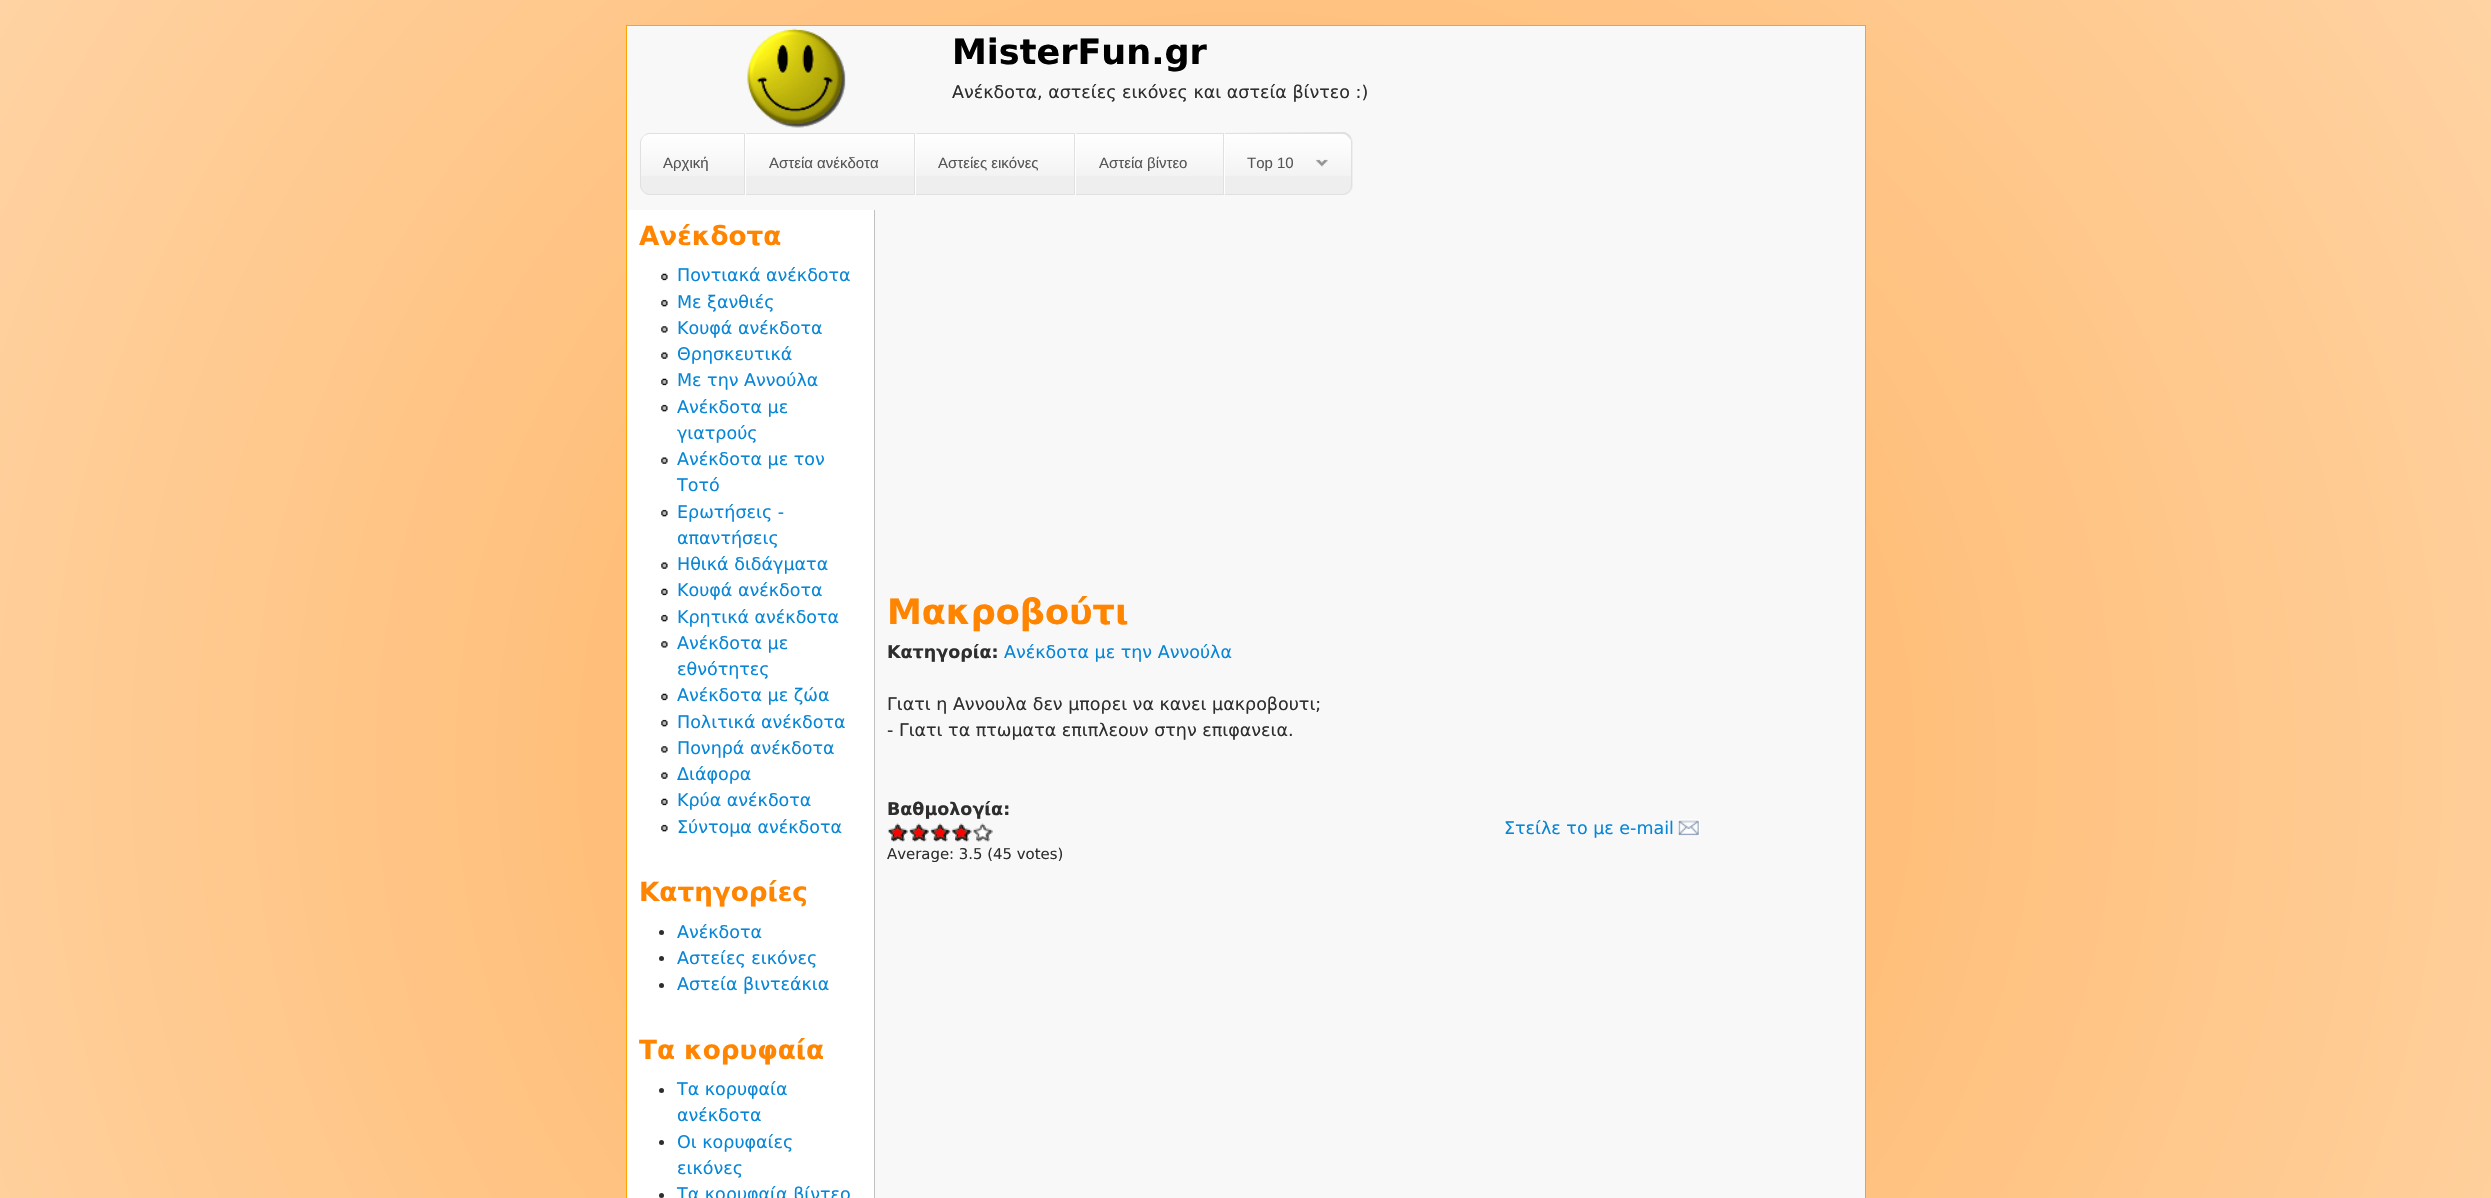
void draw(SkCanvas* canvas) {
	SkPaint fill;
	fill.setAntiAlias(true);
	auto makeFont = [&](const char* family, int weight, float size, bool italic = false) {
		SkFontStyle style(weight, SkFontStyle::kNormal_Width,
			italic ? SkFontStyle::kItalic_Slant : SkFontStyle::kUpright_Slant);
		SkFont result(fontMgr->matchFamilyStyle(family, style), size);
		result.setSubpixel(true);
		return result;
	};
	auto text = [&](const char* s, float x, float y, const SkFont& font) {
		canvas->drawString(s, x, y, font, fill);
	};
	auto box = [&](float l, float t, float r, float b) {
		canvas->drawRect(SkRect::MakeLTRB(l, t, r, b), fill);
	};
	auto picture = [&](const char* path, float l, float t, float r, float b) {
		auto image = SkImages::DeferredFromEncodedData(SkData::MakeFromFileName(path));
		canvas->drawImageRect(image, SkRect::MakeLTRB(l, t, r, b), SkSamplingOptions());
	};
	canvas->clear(0xFFFFFFFF);
	{
		const SkColor colors[] = {0xFFFFAF5A, 0xFFFFD3A3};
		const float stops[] = {0, 1};
		fill.setShader(SkGradientShader::MakeRadial({1246, 762}, 1460, colors, stops, 2, SkTileMode::kClamp));
		fill.setAlpha(255);
	}
	box(0, 0, 2491, 1198);
	fill.setShader(nullptr);
	fill.setColor(0xFFF8F8F8);
	canvas->drawRect(SkRect::MakeLTRB(626.5f, 25.5f, 1865.5f, 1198.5f), fill);
	fill.setStyle(SkPaint::kStroke_Style);
	fill.setStrokeWidth(1);
	fill.setColor(0xFFFFA500);
	canvas->drawRect(SkRect::MakeLTRB(626.5f, 25.5f, 1865.5f, 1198.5f), fill);
	picture("image0.png", 747, 28, 846, 128);
	fill.setStyle(SkPaint::kFill_Style);
	fill.setColor(0xFFEEEEEE);
	canvas->drawPath(SkPathBuilder().moveTo(650, 133).lineTo(745, 133).lineTo(745, 195).lineTo(650, 195).cubicTo(644.5f, 195, 640, 190.5f, 640, 185).lineTo(640, 143).cubicTo(640, 137.5f, 644.5f, 133, 650, 133).close().detach(), fill);
	picture("image1.png", 640, 133, 744, 176);
	fill.setStyle(SkPaint::kStroke_Style);
	fill.setColor(0xFFE0E0E0);
	canvas->drawPath(SkPathBuilder().moveTo(650, 133.5f).lineTo(744.5f, 133.5f).lineTo(744.5f, 194.5f).lineTo(650, 194.5f).cubicTo(645, 194.5f, 640.5f, 190, 640.5f, 185).lineTo(640.5f, 143).cubicTo(640.5f, 138, 645, 133.5f, 650, 133.5f).close().detach(), fill);
	fill.setStyle(SkPaint::kFill_Style);
	fill.setColor(0xFFEEEEEE);
	box(746, 176, 914, 194);
	picture("image2.png", 746, 134, 914, 176);
	fill.setColor(0xFFE0E0E0);
	box(745, 133, 1224, 134);
	box(914, 133, 915, 195);
	box(745, 194, 915, 195);
	fill.setColor(0xFFFFFFFF);
	box(745, 133, 746, 195);
	fill.setColor(0xFFEEEEEE);
	box(916, 176, 1074, 194);
	picture("image3.png", 916, 134, 1074, 176);
	fill.setColor(0xFFE0E0E0);
	box(1074, 133, 1075, 195);
	box(915, 194, 1075, 195);
	fill.setColor(0xFFFFFFFF);
	box(915, 133, 916, 195);
	fill.setColor(0xFFEEEEEE);
	box(1076, 176, 1223, 194);
	picture("image4.png", 1076, 134, 1223, 176);
	fill.setColor(0xFFE0E0E0);
	box(1223, 133, 1224, 195);
	box(1075, 194, 1224, 195);
	fill.setColor(0xFFFFFFFF);
	box(1075, 133, 1076, 195);
	fill.setColor(0xFFEEEEEE);
	canvas->drawPath(SkPathBuilder().moveTo(1224, 133).lineTo(1343, 133).cubicTo(1348.5f, 133, 1353, 137.5f, 1353, 143).lineTo(1353, 185).cubicTo(1353, 190.5f, 1348.5f, 195, 1343, 195).lineTo(1224, 195).close().detach(), fill);
	picture("image5.png", 1224, 133, 1352, 176);
	fill.setColor(0xFFE0E0E0);
	canvas->drawPath(SkPathBuilder().moveTo(1224, 133).lineTo(1345, 132).cubicTo(1347, 133, 1348, 134, 1350, 135).lineTo(1348, 137).cubicTo(1347, 135, 1345, 134, 1342, 134).lineTo(1225, 134).close().detach(), fill);
	canvas->drawPath(SkPathBuilder().moveTo(1350, 135).cubicTo(1351, 137, 1352, 140, 1352, 142).lineTo(1352, 185).cubicTo(1352, 188, 1351, 190, 1349, 192).lineTo(1349, 191).cubicTo(1350, 190, 1351, 187, 1351, 185).lineTo(1351, 142).cubicTo(1351, 140, 1350, 138, 1348, 137).close().detach(), fill);
	canvas->drawPath(SkPathBuilder().moveTo(1224, 195).lineTo(1342, 195).cubicTo(1345, 195, 1348, 194, 1349, 192).lineTo(1349, 191).cubicTo(1347, 193, 1345, 194, 1342, 194).lineTo(1225, 194).close().detach(), fill);
	fill.setColor(0xFFFFFFFF);
	canvas->drawPath(SkPathBuilder().moveTo(1225, 134).lineTo(1225, 194).lineTo(1224, 195).lineTo(1224, 133).close().detach(), fill);
	picture("image6.png", 1316, 159, 1328, 167);
	box(628, 210, 874, 1198);
	fill.setColor(0xFFC0C0C0);
	box(874, 210, 875, 1198);
	picture("image7.png", 661, 273, 668, 281);
	picture("image8.png", 661, 299, 668, 307);
	picture("image9.png", 661, 326, 668, 333);
	picture("image10.png", 661, 352, 668, 359);
	picture("image7.png", 661, 378, 668, 386);
	picture("image8.png", 661, 404, 668, 412);
	picture("image10.png", 661, 457, 668, 464);
	picture("image8.png", 661, 509, 668, 517);
	picture("image10.png", 661, 562, 668, 569);
	picture("image11.png", 661, 588, 668, 596);
	picture("image8.png", 661, 614, 668, 622);
	picture("image9.png", 661, 641, 668, 648);
	picture("image7.png", 661, 693, 668, 701);
	picture("image8.png", 661, 719, 668, 727);
	picture("image9.png", 661, 746, 668, 753);
	picture("image10.png", 661, 772, 668, 779);
	picture("image7.png", 661, 798, 668, 806);
	picture("image8.png", 661, 824, 668, 832);
	fill.setColor(0xFF2E2E2E);
	canvas->drawCircle(661.5f, 932.5f, 2.5f, fill);
	canvas->drawCircle(661.5f, 958.5f, 2.5f, fill);
	canvas->drawCircle(661.5f, 985.5f, 2.5f, fill);
	canvas->drawCircle(661.5f, 1090.5f, 2.5f, fill);
	canvas->drawCircle(661.5f, 1142.5f, 2.5f, fill);
	canvas->drawCircle(661.5f, 1195.5f, 2.5f, fill);
	picture("image12.png", 887, 823, 908, 842);
	picture("image13.png", 888, 823, 908, 842);
	picture("image14.png", 909, 823, 929, 842);
	picture("image15.png", 909, 823, 929, 842);
	picture("image16.png", 930, 823, 951, 842);
	picture("image17.png", 930, 823, 951, 842);
	picture("image18.png", 951, 823, 972, 842);
	picture("image19.png", 951, 823, 972, 842);
	picture("image12.png", 972, 823, 993, 842);
	picture("image20.png", 973, 823, 993, 842);
	picture("image21.png", 1678, 819, 1700, 836);
	auto font1 = makeFont("DejaVu Sans", 700, 35);
	fill.setColor(0xFF000000);
	text("MisterFun.gr", 952, 64, font1);
	auto font2 = makeFont("DejaVu Sans", 400, 17.5f);
	fill.setColor(0xFF2E2E2E);
	text("Ανέκδοτα, αστείες εικόνες και αστεία βίντεο :)", 952, 98, font2);
	auto font3 = makeFont("Liberation Sans", 400, 15);
	fill.setColor(0xFF555555);
	text("Αρχική", 663, 168, font3);
	text("Αστεία ανέκδοτα", 769, 168, font3);
	text("Αστείες εικόνες", 938, 168, font3);
	text("Αστεία βίντεο", 1099, 168, font3);
	text("Top 10", 1247, 168, font3);
	auto font4 = makeFont("DejaVu Sans", 700, 26.25f);
	fill.setColor(0xFFFF8400);
	text("Ανέκδοτα", 639, 245, font4);
	fill.setColor(0xFF0786D7);
	text("Ποντιακά ανέκδοτα", 677, 281, font2);
	text("Με ξανθιές", 677, 308, font2);
	text("Κουφά ανέκδοτα", 677, 334, font2);
	text("Θρησκευτικά", 677, 360, font2);
	text("Με την Αννούλα", 677, 386, font2);
	text("Ανέκδοτα με", 677, 413, font2);
	text("γιατρούς", 677, 439, font2);
	text("Ανέκδοτα με τον", 677, 465, font2);
	text("Τοτό", 677, 491, font2);
	text("Ερωτήσεις -", 677, 518, font2);
	text("απαντήσεις", 677, 544, font2);
	text("Ηθικά διδάγματα", 677, 570, font2);
	text("Κουφά ανέκδοτα", 677, 596, font2);
	text("Κρητικά ανέκδοτα", 677, 623, font2);
	text("Ανέκδοτα με", 677, 649, font2);
	text("εθνότητες", 677, 675, font2);
	text("Ανέκδοτα με ζώα", 677, 701, font2);
	text("Πολιτικά ανέκδοτα", 677, 728, font2);
	text("Πονηρά ανέκδοτα", 677, 754, font2);
	text("Διάφορα", 677, 780, font2);
	text("Κρύα ανέκδοτα", 677, 806, font2);
	text("Σύντομα ανέκδοτα", 677, 833, font2);
	fill.setColor(0xFFFF8400);
	text("Κατηγορίες", 639, 901, font4);
	fill.setColor(0xFF0786D7);
	text("Ανέκδοτα", 677, 938, font2);
	text("Αστείες εικόνες", 677, 964, font2);
	text("Αστεία βιντεάκια", 677, 990, font2);
	fill.setColor(0xFFFF8400);
	text("Τα κορυφαία", 639, 1059, font4);
	fill.setColor(0xFF0786D7);
	text("Τα κορυφαία", 677, 1095, font2);
	text("ανέκδοτα", 677, 1121, font2);
	text("Οι κορυφαίες", 677, 1148, font2);
	text("εικόνες", 677, 1174, font2);
	text("Τα κορυφαία βίντεο", 677, 1200, font2);
	fill.setColor(0xFFFF8400);
	text("Μακροβούτι", 887, 624, font1);
	auto font5 = makeFont("DejaVu Sans", 700, 17.5f);
	fill.setColor(0xFF2E2E2E);
	text("Κατηγορία:", 887, 658, font5);
	fill.setColor(0xFF0786D7);
	text("Ανέκδοτα με την Αννούλα", 1004, 658, font2);
	fill.setColor(0xFF2E2E2E);
	text("Γιατι η Αννουλα δεν μπορει να κανει μακροβουτι;", 887, 710, font2);
	text("- Γιατι τα πτωματα επιπλεουν στην επιφανεια.", 887, 736, font2);
	text("Βαθμολογία:", 887, 815, font5);
	auto font6 = makeFont("DejaVu Sans", 400, 14.9f);
	text("Average: 3.5 (45 votes)", 887, 859, font6);
	fill.setColor(0xFF0786D7);
	text("Στείλε το με e-mail", 1504, 834, font2);
}
